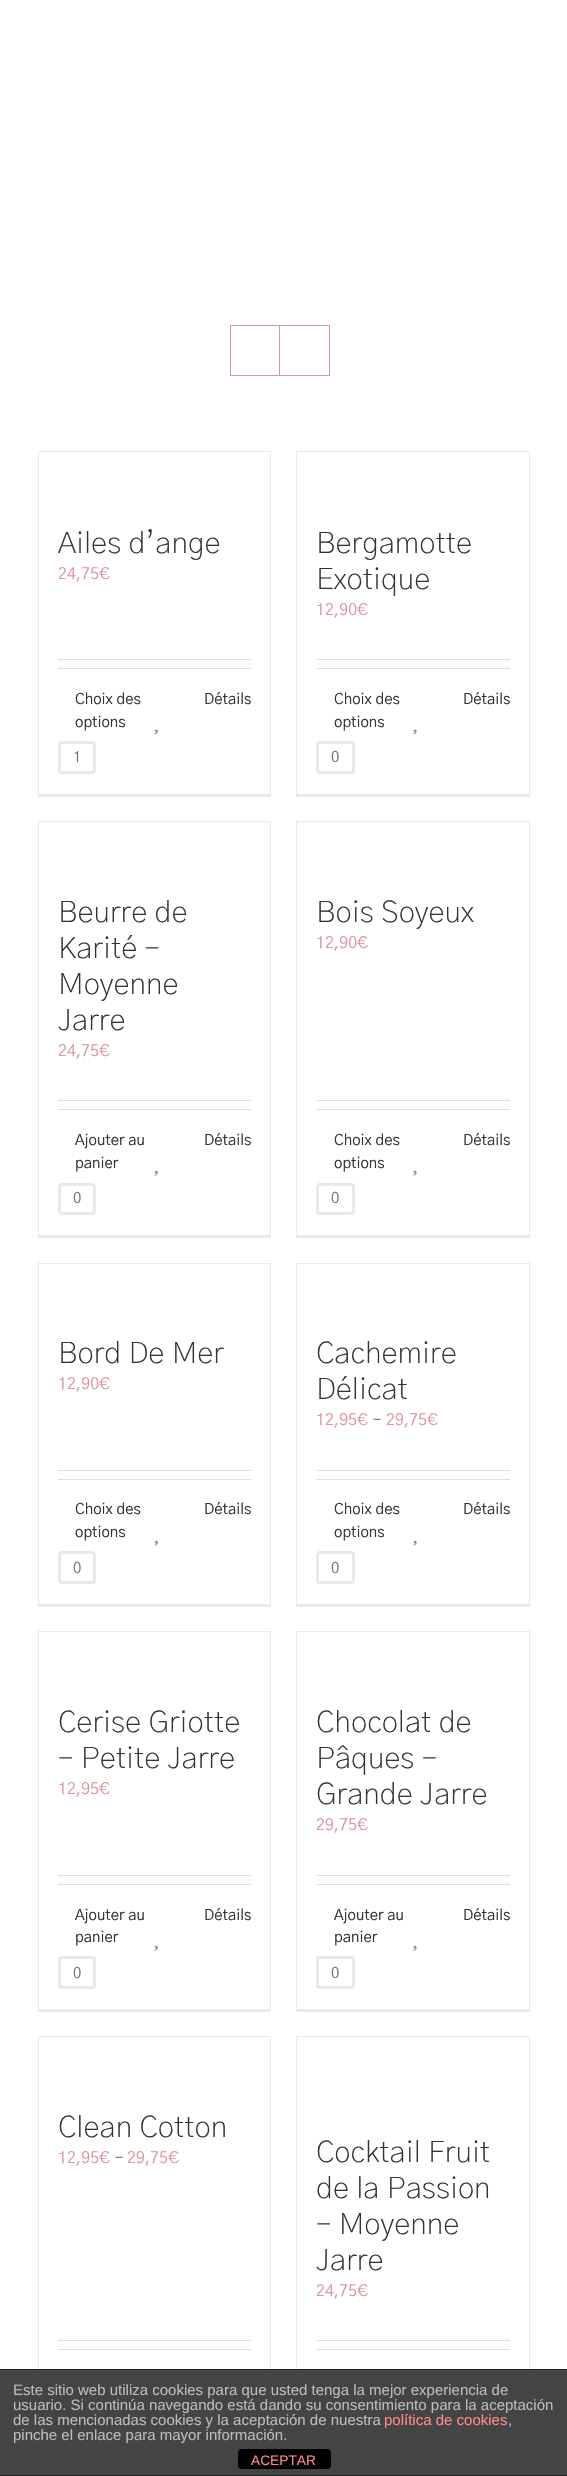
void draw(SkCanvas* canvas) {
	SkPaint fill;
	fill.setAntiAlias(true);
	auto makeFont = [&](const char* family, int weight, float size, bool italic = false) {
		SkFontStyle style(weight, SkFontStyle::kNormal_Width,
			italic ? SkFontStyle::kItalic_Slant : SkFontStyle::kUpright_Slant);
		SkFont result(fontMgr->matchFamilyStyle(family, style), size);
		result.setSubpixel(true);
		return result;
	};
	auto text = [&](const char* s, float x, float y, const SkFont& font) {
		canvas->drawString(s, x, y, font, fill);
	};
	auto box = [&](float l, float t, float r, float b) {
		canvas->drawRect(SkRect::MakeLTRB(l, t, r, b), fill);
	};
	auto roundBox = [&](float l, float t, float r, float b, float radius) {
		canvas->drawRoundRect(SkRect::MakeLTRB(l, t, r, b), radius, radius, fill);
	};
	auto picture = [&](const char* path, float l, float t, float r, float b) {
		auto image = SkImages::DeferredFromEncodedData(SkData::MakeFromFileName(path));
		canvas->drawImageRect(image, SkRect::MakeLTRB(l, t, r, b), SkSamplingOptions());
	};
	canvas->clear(0xFFFFFFFF);
	fill.setStyle(SkPaint::kStroke_Style);
	fill.setStrokeWidth(1);
	fill.setColor(0xFFDC979E);
	canvas->drawRect(SkRect::MakeLTRB(230.5f, 325.5f, 329.5f, 375.5f), fill);
	fill.setStyle(SkPaint::kFill_Style);
	box(279, 326, 280, 375);
	fill.setColor(0xFFEBEAEA);
	box(38, 451, 271, 452);
	box(270, 451, 271, 796);
	box(38, 794, 271, 797);
	box(38, 451, 39, 796);
	fill.setColor(0xFFE0DEDE);
	box(58, 659, 251, 660);
	box(58, 668, 251, 669);
	picture("image0.png", 154, 729, 158, 735);
	fill.setStyle(SkPaint::kStroke_Style);
	fill.setStrokeWidth(3);
	fill.setColor(0xFFE9E9E9);
	canvas->drawRoundRect(SkRect::MakeLTRB(59.5f, 742.5f, 94.5f, 772.5f), 2.5f, 2.5f, fill);
	fill.setStyle(SkPaint::kFill_Style);
	fill.setColor(0xFFEBEAEA);
	box(296, 451, 530, 452);
	box(529, 451, 530, 796);
	box(296, 794, 530, 797);
	box(296, 451, 297, 796);
	fill.setColor(0xFFE0DEDE);
	box(316, 659, 510, 660);
	box(316, 668, 510, 669);
	picture("image1.png", 413, 729, 417, 735);
	fill.setStyle(SkPaint::kStroke_Style);
	fill.setColor(0xFFE9E9E9);
	canvas->drawRoundRect(SkRect::MakeLTRB(317.5f, 742.5f, 353.5f, 772.5f), 2.5f, 2.5f, fill);
	fill.setStyle(SkPaint::kFill_Style);
	fill.setColor(0xFFEBEAEA);
	box(38, 821, 271, 822);
	box(270, 821, 271, 1238);
	box(38, 1235, 271, 1238);
	box(38, 821, 39, 1238);
	fill.setColor(0xFFE0DEDE);
	box(58, 1100, 251, 1101);
	box(58, 1109, 251, 1110);
	picture("image2.png", 154, 1170, 158, 1176);
	fill.setStyle(SkPaint::kStroke_Style);
	fill.setColor(0xFFE9E9E9);
	canvas->drawRoundRect(SkRect::MakeLTRB(59.5f, 1184.5f, 94.5f, 1213.5f), 2.5f, 2.5f, fill);
	fill.setStyle(SkPaint::kFill_Style);
	fill.setColor(0xFFEBEAEA);
	box(296, 821, 530, 822);
	box(529, 821, 530, 1238);
	box(296, 1235, 530, 1238);
	box(296, 821, 297, 1238);
	fill.setColor(0xFFE0DEDE);
	box(316, 1100, 510, 1101);
	box(316, 1109, 510, 1110);
	picture("image3.png", 413, 1170, 417, 1176);
	fill.setStyle(SkPaint::kStroke_Style);
	fill.setColor(0xFFE9E9E9);
	canvas->drawRoundRect(SkRect::MakeLTRB(317.5f, 1184.5f, 353.5f, 1213.5f), 2.5f, 2.5f, fill);
	fill.setStyle(SkPaint::kFill_Style);
	fill.setColor(0xFFEBEAEA);
	box(38, 1263, 271, 1264);
	box(270, 1263, 271, 1606);
	box(38, 1604, 271, 1607);
	box(38, 1263, 39, 1606);
	fill.setColor(0xFFE0DEDE);
	box(58, 1470, 251, 1471);
	box(58, 1479, 251, 1480);
	picture("image2.png", 154, 1540, 158, 1546);
	fill.setStyle(SkPaint::kStroke_Style);
	fill.setColor(0xFFE9E9E9);
	canvas->drawRoundRect(SkRect::MakeLTRB(59.5f, 1552.5f, 94.5f, 1582.5f), 2.5f, 2.5f, fill);
	fill.setStyle(SkPaint::kFill_Style);
	fill.setColor(0xFFEBEAEA);
	box(296, 1263, 530, 1264);
	box(529, 1263, 530, 1606);
	box(296, 1604, 530, 1607);
	box(296, 1263, 297, 1606);
	fill.setColor(0xFFE0DEDE);
	box(316, 1470, 510, 1471);
	box(316, 1479, 510, 1480);
	picture("image3.png", 413, 1540, 417, 1546);
	fill.setStyle(SkPaint::kStroke_Style);
	fill.setColor(0xFFE9E9E9);
	canvas->drawRoundRect(SkRect::MakeLTRB(317.5f, 1552.5f, 353.5f, 1582.5f), 2.5f, 2.5f, fill);
	fill.setStyle(SkPaint::kFill_Style);
	fill.setColor(0xFFEBEAEA);
	box(38, 1631, 271, 1632);
	box(270, 1631, 271, 2011);
	box(38, 2009, 271, 2012);
	box(38, 1631, 39, 2011);
	fill.setColor(0xFFE0DEDE);
	box(58, 1875, 251, 1876);
	box(58, 1884, 251, 1885);
	picture("image2.png", 154, 1945, 158, 1951);
	fill.setStyle(SkPaint::kStroke_Style);
	fill.setColor(0xFFE9E9E9);
	canvas->drawRoundRect(SkRect::MakeLTRB(59.5f, 1957.5f, 94.5f, 1987.5f), 2.5f, 2.5f, fill);
	fill.setStyle(SkPaint::kFill_Style);
	fill.setColor(0xFFEBEAEA);
	box(296, 1631, 530, 1632);
	box(529, 1631, 530, 2011);
	box(296, 2009, 530, 2012);
	box(296, 1631, 297, 2011);
	fill.setColor(0xFFE0DEDE);
	box(316, 1875, 510, 1876);
	box(316, 1884, 510, 1885);
	picture("image3.png", 413, 1945, 417, 1951);
	fill.setStyle(SkPaint::kStroke_Style);
	fill.setColor(0xFFE9E9E9);
	canvas->drawRoundRect(SkRect::MakeLTRB(317.5f, 1957.5f, 353.5f, 1987.5f), 2.5f, 2.5f, fill);
	fill.setStyle(SkPaint::kFill_Style);
	fill.setColor(0xFFEBEAEA);
	box(38, 2036, 271, 2037);
	box(270, 2036, 271, 2369);
	box(38, 2036, 39, 2369);
	fill.setColor(0xFFE0DEDE);
	box(58, 2340, 251, 2341);
	box(58, 2349, 251, 2350);
	fill.setColor(0xFFEBEAEA);
	box(296, 2036, 530, 2037);
	box(529, 2036, 530, 2369);
	box(296, 2036, 297, 2369);
	fill.setColor(0xFFE0DEDE);
	box(316, 2340, 510, 2341);
	box(316, 2349, 510, 2350);
	fill.setColor(0xFF444444);
	box(0, 2370, 567, 2475);
	fill.setColor(0xFF222222);
	box(0, 2369, 567, 2370);
	box(0, 2475, 567, 2476);
	fill.setColor(0xFF000000);
	roundBox(238, 2449, 331, 2469, 4);
	auto font1 = makeFont("Gothic A1", 200, 30);
	fill.setColor(0xFF333333);
	text("Ailes d’ange", 58, 553, font1);
	auto font2 = makeFont("Gothic A1", 400, 16);
	fill.setColor(0xFFDC979E);
	text("24,75€", 58, 579, font2);
	auto font3 = makeFont("Gothic A1", 400, 15);
	fill.setColor(0xFF333333);
	text("Choix des", 75, 704, font3);
	text("options", 75, 727, font3);
	text("Détails", 204, 704, font3);
	fill.setColor(0xFF747474);
	text("1", 73, 762, font3);
	fill.setColor(0xFF333333);
	text("Bergamotte", 316, 553, font1);
	text("Exotique", 316, 589, font1);
	fill.setColor(0xFFDC979E);
	text("12,90€", 316, 615, font2);
	fill.setColor(0xFF333333);
	text("Choix des", 334, 704, font3);
	text("options", 334, 727, font3);
	text("Détails", 463, 704, font3);
	fill.setColor(0xFF747474);
	text("0", 331, 762, font3);
	fill.setColor(0xFF333333);
	text("Beurre de", 58, 922, font1);
	text("Karité –", 58, 958, font1);
	text("Moyenne", 58, 994, font1);
	text("Jarre", 58, 1030, font1);
	fill.setColor(0xFFDC979E);
	text("24,75€", 58, 1056, font2);
	fill.setColor(0xFF333333);
	text("Ajouter au", 75, 1145, font3);
	text("panier", 75, 1168, font3);
	text("Détails", 204, 1145, font3);
	fill.setColor(0xFF747474);
	text("0", 73, 1203, font3);
	fill.setColor(0xFF333333);
	text("Bois Soyeux", 316, 922, font1);
	fill.setColor(0xFFDC979E);
	text("12,90€", 316, 948, font2);
	fill.setColor(0xFF333333);
	text("Choix des", 334, 1145, font3);
	text("options", 334, 1168, font3);
	text("Détails", 463, 1145, font3);
	fill.setColor(0xFF747474);
	text("0", 331, 1203, font3);
	fill.setColor(0xFF333333);
	text("Bord De Mer", 58, 1363, font1);
	fill.setColor(0xFFDC979E);
	text("12,90€", 58, 1389, font2);
	fill.setColor(0xFF333333);
	text("Choix des", 75, 1514, font3);
	text("options", 75, 1537, font3);
	text("Détails", 204, 1514, font3);
	fill.setColor(0xFF747474);
	text("0", 73, 1573, font3);
	fill.setColor(0xFF333333);
	text("Cachemire", 316, 1363, font1);
	text("Délicat", 316, 1399, font1);
	fill.setColor(0xFFDC979E);
	text("12,95€", 316, 1425, font2);
	fill.setColor(0xFF747474);
	text("–", 373, 1425, font2);
	fill.setColor(0xFFDC979E);
	text("29,75€", 386, 1425, font2);
	fill.setColor(0xFF333333);
	text("Choix des", 334, 1514, font3);
	text("options", 334, 1537, font3);
	text("Détails", 463, 1514, font3);
	fill.setColor(0xFF747474);
	text("0", 331, 1573, font3);
	fill.setColor(0xFF333333);
	text("Cerise Griotte", 58, 1732, font1);
	text("– Petite Jarre", 58, 1768, font1);
	fill.setColor(0xFFDC979E);
	text("12,95€", 58, 1794, font2);
	fill.setColor(0xFF333333);
	text("Ajouter au", 75, 1920, font3);
	text("panier", 75, 1942, font3);
	text("Détails", 204, 1920, font3);
	fill.setColor(0xFF747474);
	text("0", 73, 1978, font3);
	fill.setColor(0xFF333333);
	text("Chocolat de", 316, 1732, font1);
	text("Pâques –", 316, 1768, font1);
	text("Grande Jarre", 316, 1804, font1);
	fill.setColor(0xFFDC979E);
	text("29,75€", 316, 1830, font2);
	fill.setColor(0xFF333333);
	text("Ajouter au", 334, 1920, font3);
	text("panier", 334, 1942, font3);
	text("Détails", 463, 1920, font3);
	fill.setColor(0xFF747474);
	text("0", 331, 1978, font3);
	fill.setColor(0xFF333333);
	text("Clean Cotton", 58, 2137, font1);
	fill.setColor(0xFFDC979E);
	text("12,95€", 58, 2163, font2);
	fill.setColor(0xFF747474);
	text("–", 115, 2163, font2);
	fill.setColor(0xFFDC979E);
	text("29,75€", 127, 2163, font2);
	fill.setColor(0xFF333333);
	text("Cocktail Fruit", 316, 2162, font1);
	text("de la Passion", 316, 2198, font1);
	text("– Moyenne", 316, 2234, font1);
	text("Jarre", 316, 2270, font1);
	fill.setColor(0xFFDC979E);
	text("24,75€", 316, 2296, font2);
	auto font4 = makeFont("Liberation Sans", 400, 15);
	fill.setColor(0xFFBBBBBB);
	text("Este sitio web utiliza cookies para que usted tenga la mejor experiencia de", 13, 2395, font4);
	text("usuario. Si continúa navegando está dando su consentimiento para la aceptación", 13, 2410, font4);
	text("de las mencionadas cookies y la aceptación de nuestra", 13, 2425, font4);
	fill.setColor(0xFFFF8888);
	text("política de cookies", 384, 2425, font4);
	fill.setColor(0xFFBBBBBB);
	text(",", 508, 2425, font4);
	text("pinche el enlace para mayor información.", 13, 2440, font4);
	auto font5 = makeFont("Liberation Sans", 400, 13.75f);
	fill.setColor(0xFFFF8888);
	text("ACEPTAR", 251, 2465, font5);
}
